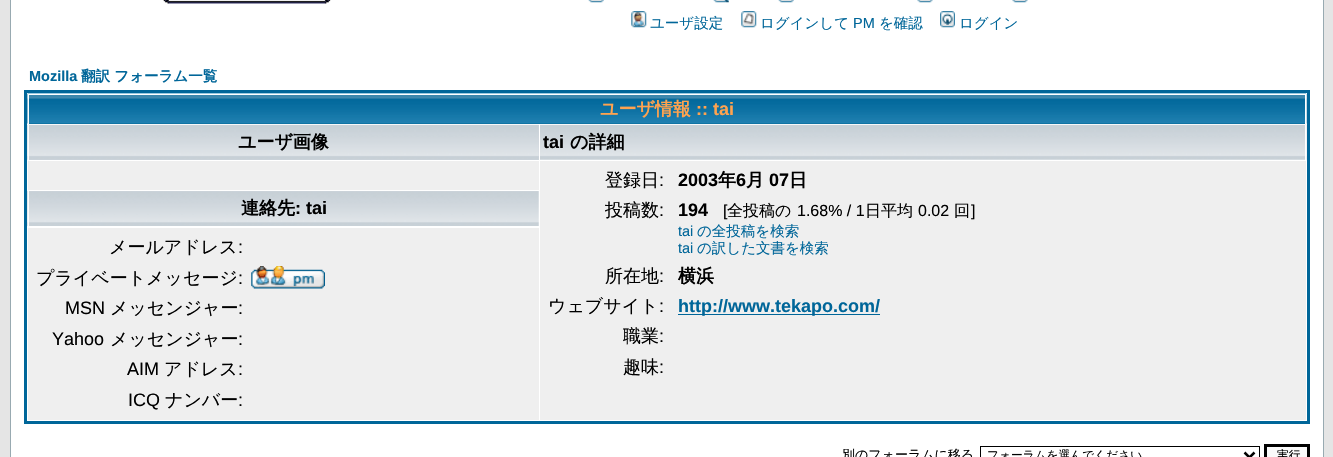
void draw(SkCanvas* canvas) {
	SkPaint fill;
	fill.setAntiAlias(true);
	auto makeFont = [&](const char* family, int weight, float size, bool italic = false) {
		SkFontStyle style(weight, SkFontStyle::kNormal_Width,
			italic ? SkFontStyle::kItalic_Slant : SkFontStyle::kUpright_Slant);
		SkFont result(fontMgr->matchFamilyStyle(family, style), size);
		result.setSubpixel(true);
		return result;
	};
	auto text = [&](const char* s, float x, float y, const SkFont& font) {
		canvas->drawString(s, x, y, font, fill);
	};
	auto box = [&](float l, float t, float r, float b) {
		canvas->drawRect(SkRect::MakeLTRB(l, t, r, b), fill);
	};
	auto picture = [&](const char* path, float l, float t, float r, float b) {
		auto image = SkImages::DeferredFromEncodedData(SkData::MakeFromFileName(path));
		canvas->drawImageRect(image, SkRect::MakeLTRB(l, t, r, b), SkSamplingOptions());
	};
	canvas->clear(0xFFE5E5E5);
	fill.setColor(0xFFFFFFFF);
	canvas->drawRect(SkRect::MakeLTRB(10.5f, -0.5f, 1323.5f, 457.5f), fill);
	fill.setStyle(SkPaint::kStroke_Style);
	fill.setStrokeWidth(1);
	fill.setColor(0xFF98AAB1);
	canvas->drawRect(SkRect::MakeLTRB(10.5f, -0.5f, 1323.5f, 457.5f), fill);
	picture("image0.png", 163, 0, 331, 4);
	picture("image1.png", 588, 0, 604, 3);
	picture("image2.png", 713, 0, 729, 3);
	picture("image3.png", 778, 0, 794, 3);
	picture("image4.png", 917, 0, 933, 3);
	picture("image5.png", 1012, 0, 1028, 3);
	picture("image6.png", 631, 11, 647, 28);
	picture("image7.png", 741, 11, 757, 28);
	picture("image8.png", 940, 11, 955, 28);
	fill.setStrokeWidth(3);
	fill.setColor(0xFF006699);
	canvas->drawRect(SkRect::MakeLTRB(25.5f, 91.5f, 1308.5f, 422.5f), fill);
	fill.setStyle(SkPaint::kFill_Style);
	box(29, 123, 1305, 124);
	picture("image9.png", 27, 93, 1307, 124);
	fill.setColor(0xFFFFFFFF);
	box(28, 94, 1306, 95);
	box(1305, 94, 1306, 124);
	box(28, 94, 29, 124);
	fill.setColor(0xFFD1D7DC);
	box(29, 125, 539, 160);
	picture("image10.png", 27, 124, 539, 160);
	fill.setColor(0xFFFFFFFF);
	box(28, 125, 29, 160);
	picture("image11.png", 540, 124, 1307, 160);
	box(1305, 125, 1306, 160);
	picture("image12.png", 27, 191, 539, 226);
	box(28, 191, 29, 226);
	fill.setColor(0xFFEFEFEF);
	box(28, 161, 539, 190);
	box(540, 161, 1306, 420);
	fill.setColor(0xFF006699);
	box(678, 314, 880, 315);
	fill.setColor(0xFFEFEFEF);
	box(28, 228, 539, 420);
	picture("image13.png", 251, 266, 325, 289);
	fill.setStyle(SkPaint::kStroke_Style);
	fill.setStrokeWidth(1);
	fill.setColor(0xFF000000);
	canvas->drawRect(SkRect::MakeLTRB(980.5f, 446.5f, 1259.5f, 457.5f), fill);
	fill.setStrokeWidth(2.5f);
	canvas->drawPath(SkPathBuilder().moveTo(1244.5f, 452.5f).lineTo(1249.5f, 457.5f).lineTo(1254.5f, 452.5f).detach(), fill);
	fill.setStyle(SkPaint::kFill_Style);
	fill.setColor(0xFFFAFAFA);
	canvas->drawRect(SkRect::MakeLTRB(1265.5f, 445.5f, 1308.5f, 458.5f), fill);
	fill.setStyle(SkPaint::kStroke_Style);
	fill.setStrokeWidth(3);
	fill.setColor(0xFF000000);
	canvas->drawRect(SkRect::MakeLTRB(1265.5f, 445.5f, 1308.5f, 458.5f), fill);
	auto font1 = makeFont("WenQuanYi Zen Hei", 500, 14.5f);
	fill.setStyle(SkPaint::kFill_Style);
	fill.setColor(0xFF006699);
	text("ユーザ設定", 650, 28, font1);
	text("ログインして", 760, 28, font1);
	auto font2 = makeFont("Liberation Sans", 400, 14.5f);
	text("PM", 853, 28, font2);
	text("を確認", 879, 28, font1);
	text("ログイン", 959, 28, font1);
	auto font3 = makeFont("Liberation Sans", 700, 14.5f);
	text("Mozilla", 29, 81, font3);
	auto font4 = makeFont("WenQuanYi Zen Hei", 700, 14.5f);
	text("翻訳 フォーラム一覧", 81, 81, font4);
	auto font5 = makeFont("WenQuanYi Zen Hei", 700, 18);
	fill.setColor(0xFFFFA34F);
	text("ユーザ情報", 600, 115, font5);
	auto font6 = makeFont("Liberation Sans", 700, 18);
	text(":: tai", 696, 115, font6);
	fill.setColor(0xFF000000);
	text("ユーザ画像", 238, 148, font5);
	text("tai", 543, 148, font6);
	text("の詳細", 570, 148, font5);
	text("連絡先", 241, 214, font5);
	text(": tai", 295, 214, font6);
	auto font7 = makeFont("WenQuanYi Zen Hei", 500, 18);
	text("登録日", 605, 186, font7);
	auto font8 = makeFont("Liberation Sans", 400, 18);
	text(":", 659, 186, font8);
	text("2003", 678, 186, font6);
	text("年", 718, 186, font5);
	text("6", 736, 186, font6);
	text("月", 746, 186, font5);
	text("07", 769, 186, font6);
	text("日", 789, 186, font5);
	text("投稿数", 605, 216, font7);
	text(":", 659, 216, font8);
	text("194", 678, 216, font6);
	auto font9 = makeFont("Liberation Sans", 400, 16);
	text("[", 723, 216, font9);
	auto font10 = makeFont("WenQuanYi Zen Hei", 500, 16);
	text("全投稿の", 727, 216, font10);
	text("1.68% / 1", 797, 216, font9);
	text("日平均", 865, 216, font10);
	text("0.02", 918, 216, font9);
	text("回", 954, 216, font10);
	text("]", 971, 216, font9);
	fill.setColor(0xFF006699);
	text("tai", 678, 236, font2);
	text("の全投稿を検索", 697, 236, font1);
	text("tai", 678, 253, font2);
	text("の訳した文書を検索", 697, 253, font1);
	fill.setColor(0xFF000000);
	text("所在地", 605, 282, font7);
	text(":", 659, 282, font8);
	text("横浜", 678, 282, font5);
	text("ウェブサイト", 548, 312, font7);
	text(":", 659, 312, font8);
	fill.setColor(0xFF006699);
	text("http://www.tekapo.com/", 678, 312, font6);
	fill.setColor(0xFF000000);
	text("職業", 623, 342, font7);
	text(":", 659, 342, font8);
	text("趣味", 623, 373, font7);
	text(":", 659, 373, font8);
	text("メールアドレス", 109, 253, font7);
	text(":", 238, 253, font8);
	text("プライベートメッセージ", 36, 284, font7);
	text(":", 238, 284, font8);
	text("MSN", 65, 314, font8);
	text("メッセンジャー", 110, 314, font7);
	text(":", 238, 314, font8);
	text("Yahoo", 52, 345, font8);
	text("メッセンジャー", 110, 345, font7);
	text(":", 238, 345, font8);
	text("AIM", 127, 375, font8);
	text("アドレス", 164, 375, font7);
	text(":", 238, 375, font8);
	text("ICQ", 128, 406, font8);
	text("ナンバー", 165, 406, font7);
	text(":", 238, 406, font8);
	auto font11 = makeFont("WenQuanYi Zen Hei", 500, 13);
	text("別のフォーラムに移る", 842, 459, font11);
	auto font12 = makeFont("WenQuanYi Zen Hei", 500, 11.7f);
	text("フォーラムを選んでください", 987, 459, font12);
	text("実行", 1277, 459, font12);
}
